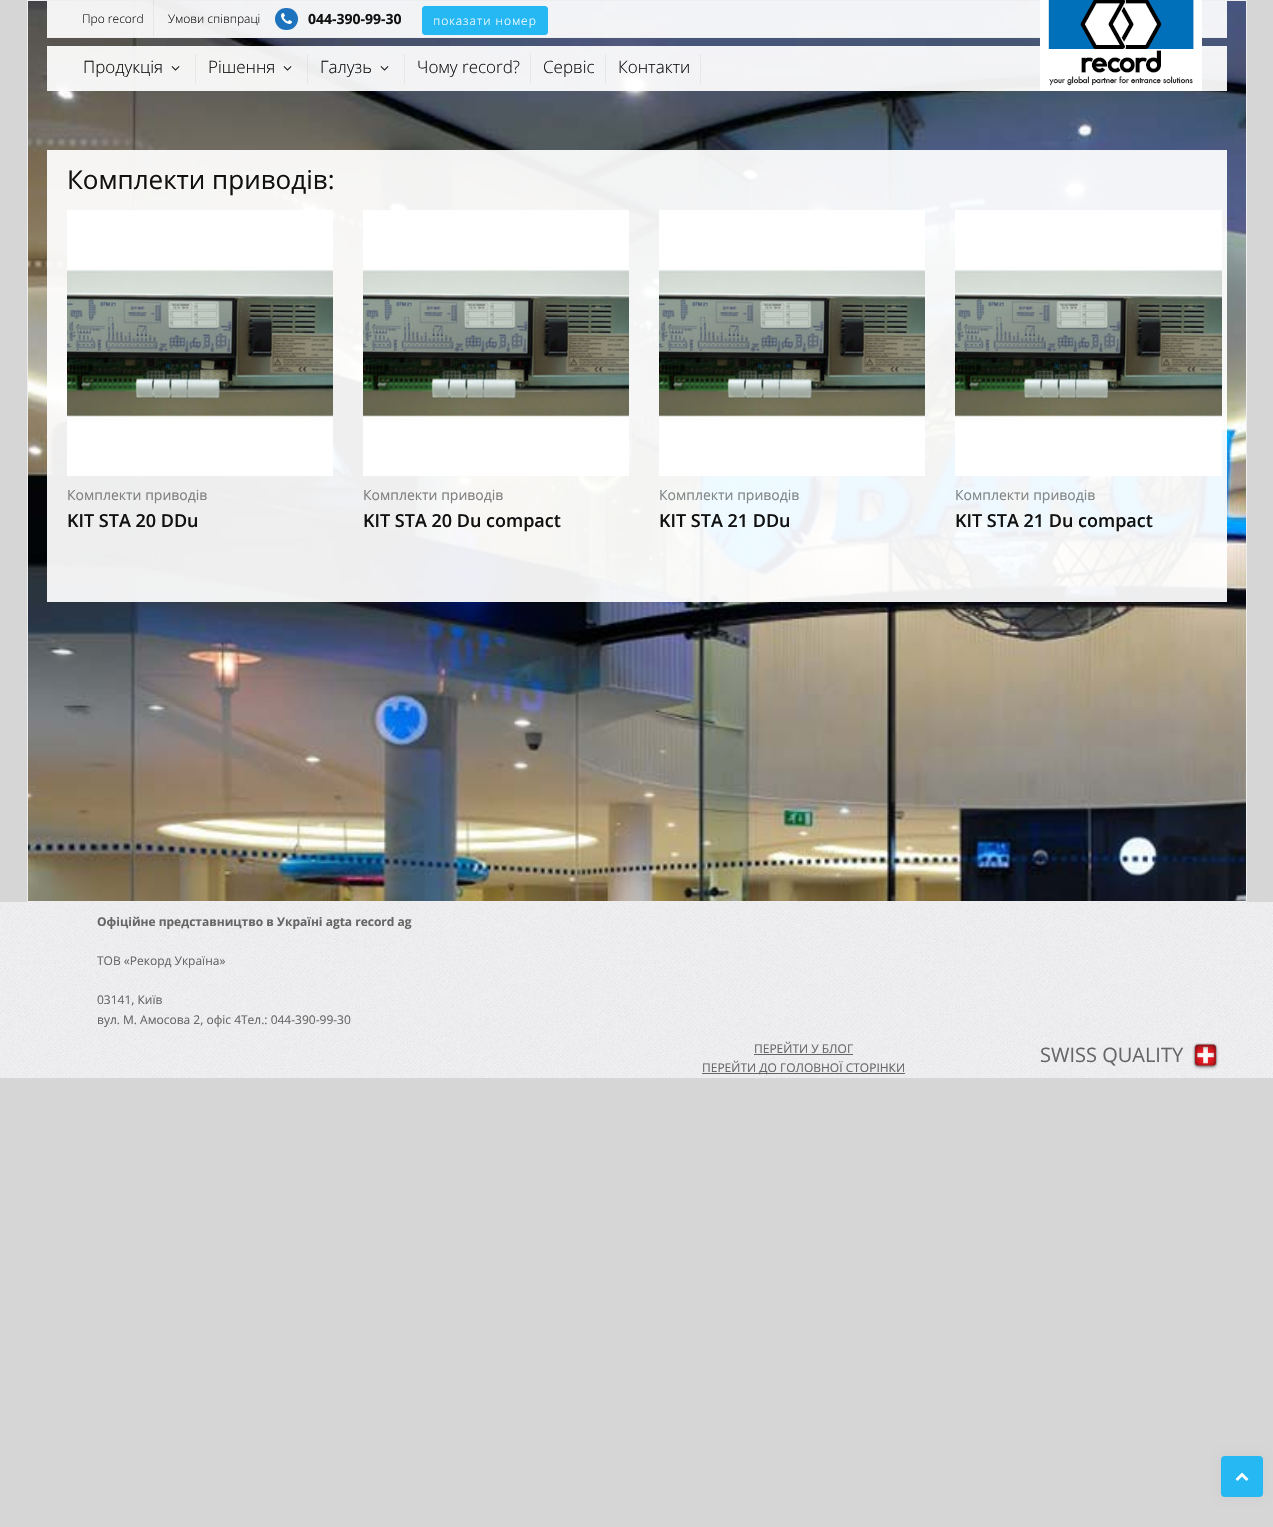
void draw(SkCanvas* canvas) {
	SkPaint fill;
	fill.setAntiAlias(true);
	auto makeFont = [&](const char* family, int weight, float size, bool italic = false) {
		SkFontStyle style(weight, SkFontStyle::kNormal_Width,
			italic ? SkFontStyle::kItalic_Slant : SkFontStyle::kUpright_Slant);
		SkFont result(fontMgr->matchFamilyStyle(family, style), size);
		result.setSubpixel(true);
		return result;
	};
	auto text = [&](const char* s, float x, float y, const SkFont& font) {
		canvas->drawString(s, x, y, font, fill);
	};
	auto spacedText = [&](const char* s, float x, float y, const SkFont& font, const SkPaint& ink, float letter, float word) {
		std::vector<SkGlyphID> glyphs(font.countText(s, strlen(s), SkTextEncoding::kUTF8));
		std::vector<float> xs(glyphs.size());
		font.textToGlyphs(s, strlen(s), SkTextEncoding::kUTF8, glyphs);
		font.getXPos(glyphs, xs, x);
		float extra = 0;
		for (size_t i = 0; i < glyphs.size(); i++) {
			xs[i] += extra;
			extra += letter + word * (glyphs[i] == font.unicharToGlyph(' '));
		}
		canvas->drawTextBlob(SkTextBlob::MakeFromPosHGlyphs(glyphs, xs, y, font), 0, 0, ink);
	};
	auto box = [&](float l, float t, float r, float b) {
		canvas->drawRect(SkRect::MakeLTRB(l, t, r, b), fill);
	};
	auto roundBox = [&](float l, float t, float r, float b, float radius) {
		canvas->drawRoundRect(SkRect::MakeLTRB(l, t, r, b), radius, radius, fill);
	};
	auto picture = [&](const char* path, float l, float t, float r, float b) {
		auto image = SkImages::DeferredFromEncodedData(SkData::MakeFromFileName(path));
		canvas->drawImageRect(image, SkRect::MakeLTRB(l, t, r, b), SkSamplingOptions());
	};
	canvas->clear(0xFFD6D6D6);
	picture("image0.png", 28, 1, 1246, 901);
	fill.setStyle(SkPaint::kStroke_Style);
	fill.setStrokeWidth(1);
	fill.setColor(0xFFEEEEEE);
	canvas->drawRect(SkRect::MakeLTRB(27.5f, 0.5f, 1246.5f, 901.5f), fill);
	fill.setStyle(SkPaint::kFill_Style);
	fill.setColor(0xEDFFFFFF);
	box(47, 1, 1227, 37);
	fill.setColor(0xFFEEEEEE);
	box(47, 37, 1227, 38);
	fill.setColor(0x33B4B4B4);
	box(153, 0, 154, 36);
	fill.setColor(0xFF1E73BE);
	roundBox(275, 8, 298, 30, 11);
	picture("image1.png", 281, 13, 292, 24);
	fill.setColor(0xFF26B8F3);
	canvas->drawRoundRect(SkRect::MakeLTRB(422.5f, 6.5f, 547.5f, 34.5f), 2.5f, 2.5f, fill);
	fill.setStyle(SkPaint::kStroke_Style);
	canvas->drawRoundRect(SkRect::MakeLTRB(422.5f, 6.5f, 547.5f, 34.5f), 2.5f, 2.5f, fill);
	fill.setStyle(SkPaint::kFill_Style);
	fill.setColor(0xEDFFFFFF);
	box(47, 46, 1227, 91);
	fill.setColor(0xFFE7E7E6);
	box(195, 54, 196, 84);
	picture("image2.png", 171, 66, 180, 71);
	fill.setColor(0x33B4B4B4);
	box(307, 54, 308, 84);
	picture("image3.png", 283, 66, 292, 71);
	fill.setColor(0xFFE6E6E8);
	box(404, 54, 405, 84);
	picture("image4.png", 380, 66, 389, 71);
	box(530, 54, 531, 84);
	fill.setColor(0xFFE6E7E8);
	box(605, 54, 606, 84);
	fill.setColor(0xFFE6E6E8);
	box(700, 54, 701, 84);
	picture("image5.png", 1040, 0, 1202, 91);
	fill.setColor(0xEDFFFFFF);
	box(47, 150, 1227, 602);
	picture("image6.png", 67, 210, 333, 476);
	picture("image7.png", 363, 210, 629, 476);
	picture("image8.png", 659, 210, 925, 476);
	picture("image9.png", 955, 210, 1222, 476);
	picture("image10.png", 0, 902, 1273, 1078);
	fill.setColor(0xFF666666);
	box(754, 1054, 853, 1055);
	box(702, 1073, 905, 1074);
	picture("image11.png", 1192, 1043, 1219, 1070);
	fill.setColor(0x0D000000);
	fill.setMaskFilter(SkMaskFilter::MakeBlur(kNormal_SkBlurStyle, 5));
	canvas->drawRoundRect(SkRect::MakeLTRB(1221, 1456, 1263, 1497), 4, 4, fill);
	fill.setMaskFilter(nullptr);
	fill.setColor(0xFF26B8F3);
	roundBox(1221, 1456, 1263, 1497, 4);
	picture("image12.png", 1235, 1472, 1249, 1481);
	auto font1 = makeFont("Open Sans", 300, 12);
	fill.setColor(0xFF111111);
	text("Про record", 82, 23, font1);
	text("Умови спiвпрацi", 168, 23, font1);
	auto font2 = makeFont("Open Sans", 700, 14);
	text("044-390-99-30", 308, 24, font2);
	fill.setColor(0xFFFFFFFF);
	spacedText("показати номер", 433, 25, font1, fill, 1, 0);
	auto font3 = makeFont("Open Sans", 300, 17);
	fill.setColor(0xFF111111);
	text("Продукцiя", 83, 73, font3);
	text("Рішення", 208, 73, font3);
	text("Галузь", 320, 73, font3);
	text("Чому record?", 417, 73, font3);
	text("Сервiс", 543, 73, font3);
	text("Контакти", 618, 73, font3);
	auto font4 = makeFont("Open Sans", 400, 26);
	text("Комплекти приводів:", 67, 189, font4);
	auto font5 = makeFont("Open Sans", 400, 14);
	fill.setColor(0xFF7F7F80);
	text("Комплекти приводів", 67, 500, font5);
	auto font6 = makeFont("Open Sans", 600, 18);
	fill.setColor(0xFF111111);
	text("KIT STA 20 DDu", 67, 527, font6);
	fill.setColor(0xFF7F7F80);
	text("Комплекти приводів", 363, 500, font5);
	fill.setColor(0xFF111111);
	text("KIT STA 20 Du compact", 363, 527, font6);
	fill.setColor(0xFF808586);
	text("Комплекти приводів", 659, 500, font5);
	fill.setColor(0xFF111111);
	text("KIT STA 21 DDu", 659, 527, font6);
	fill.setColor(0xFF808586);
	text("Комплекти приводів", 955, 500, font5);
	fill.setColor(0xFF111111);
	text("KIT STA 21 Du compact", 955, 527, font6);
	auto font7 = makeFont("Open Sans", 700, 12);
	fill.setColor(0xFF666666);
	text("Офіційне представництво в Україні agta record ag", 97, 926, font7);
	auto font8 = makeFont("Open Sans", 400, 12);
	text("ТОВ «Рекорд Україна»", 97, 965, font8);
	text("03141, Київ", 97, 1004, font8);
	text("вул. М. Амосова 2, офіс 4Тел.: 044-390-99-30", 97, 1024, font8);
	text("ПЕРЕЙТИ У БЛОГ", 754, 1053, font8);
	text("ПЕРЕЙТИ ДО ГОЛОВНОЇ СТОРІНКИ", 702, 1072, font8);
	auto font9 = makeFont("Open Sans", 400, 20);
	text("SWISS QUALITY", 1040, 1062, font9);
}
